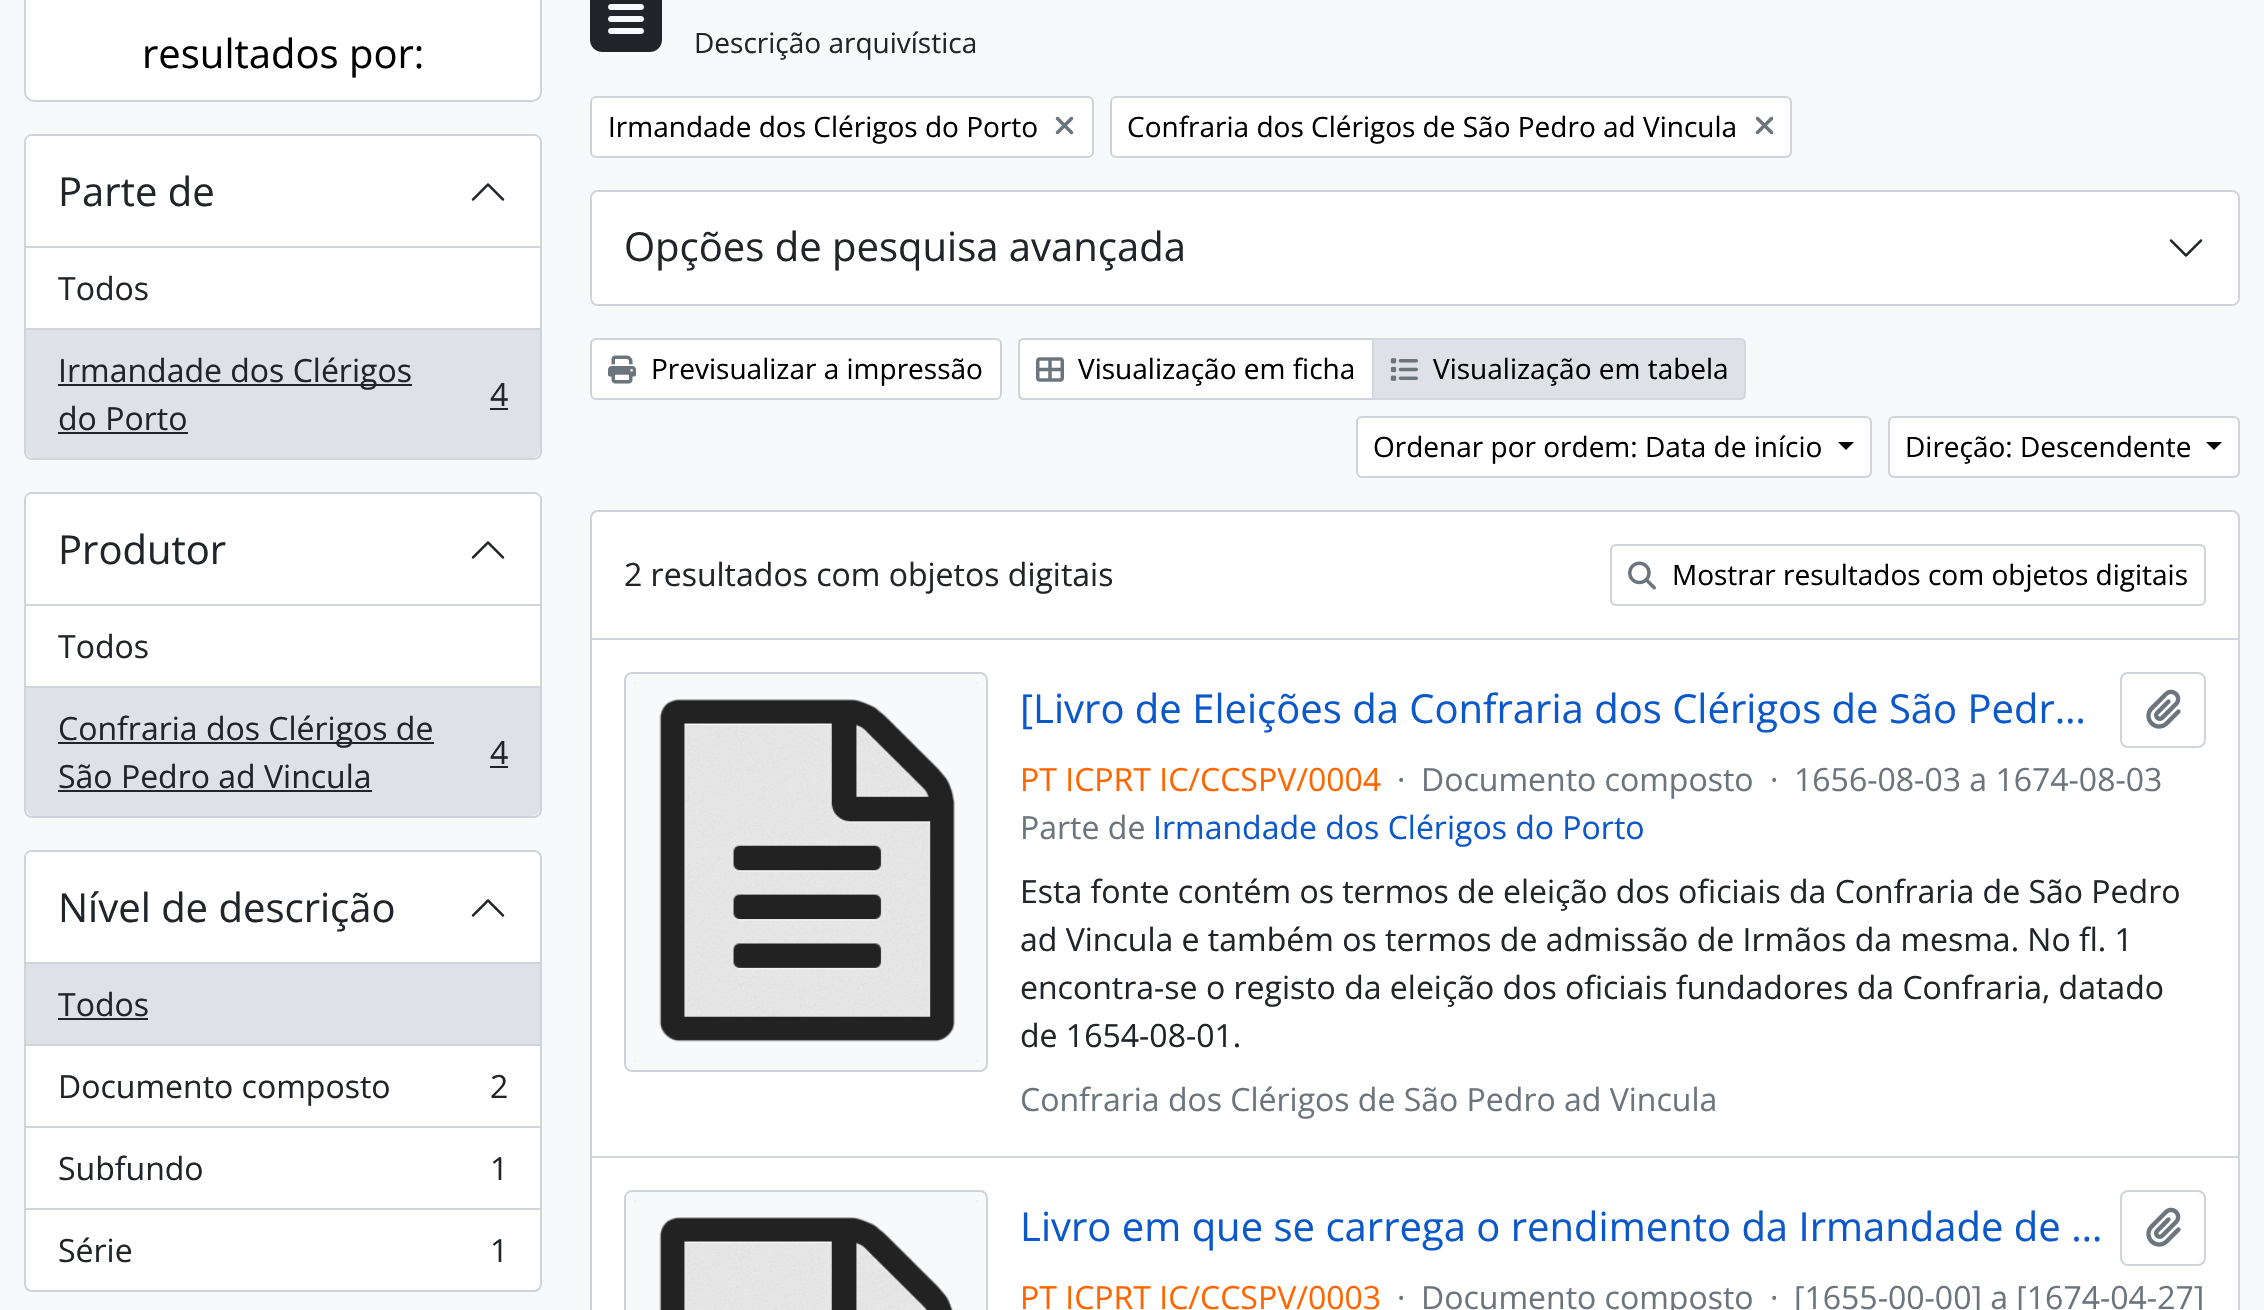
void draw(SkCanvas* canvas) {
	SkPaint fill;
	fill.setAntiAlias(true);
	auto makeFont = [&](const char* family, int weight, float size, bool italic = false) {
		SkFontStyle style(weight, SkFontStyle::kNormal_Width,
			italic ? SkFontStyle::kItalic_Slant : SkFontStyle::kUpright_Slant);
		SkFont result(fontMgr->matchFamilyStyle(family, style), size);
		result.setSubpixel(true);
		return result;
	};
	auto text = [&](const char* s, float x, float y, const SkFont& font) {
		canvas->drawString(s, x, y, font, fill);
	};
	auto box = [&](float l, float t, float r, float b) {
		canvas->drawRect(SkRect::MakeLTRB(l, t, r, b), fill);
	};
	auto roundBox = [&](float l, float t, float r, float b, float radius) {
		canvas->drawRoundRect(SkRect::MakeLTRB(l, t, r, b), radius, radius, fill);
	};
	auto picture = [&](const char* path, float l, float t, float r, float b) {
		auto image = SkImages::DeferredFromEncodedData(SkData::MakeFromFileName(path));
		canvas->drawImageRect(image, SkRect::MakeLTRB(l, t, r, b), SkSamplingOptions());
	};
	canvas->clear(0xFFF8F9FA);
	fill.setColor(0xFFFFFFFF);
	canvas->drawRoundRect(SkRect::MakeLTRB(25, -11, 541, 101), 9, 9, fill);
	fill.setStyle(SkPaint::kStroke_Style);
	fill.setStrokeWidth(2);
	fill.setColor(0xFFCED4DA);
	canvas->drawRoundRect(SkRect::MakeLTRB(25, -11, 541, 101), 9, 9, fill);
	fill.setStyle(SkPaint::kFill_Style);
	fill.setColor(0xFFFFFFFF);
	canvas->drawRoundRect(SkRect::MakeLTRB(25, 135, 541, 459), 7, 7, fill);
	fill.setStyle(SkPaint::kStroke_Style);
	fill.setColor(0xFFCED4DA);
	canvas->drawRoundRect(SkRect::MakeLTRB(25, 135, 541, 459), 7, 7, fill);
	fill.setStyle(SkPaint::kFill_Style);
	fill.setColor(0xFFFFFFFF);
	canvas->drawPath(SkPathBuilder().moveTo(32, 136).lineTo(534, 136).cubicTo(537.5f, 136, 540, 138.5f, 540, 142).lineTo(540, 248).lineTo(26, 248).lineTo(26, 142).cubicTo(26, 138.5f, 28.5f, 136, 32, 136).close().detach(), fill);
	fill.setColor(0xFFCED4DA);
	box(26, 246, 540, 248);
	picture("image0.png", 471, 183, 505, 201);
	box(26, 328, 540, 330);
	fill.setColor(0xFFDEE2E6);
	canvas->drawPath(SkPathBuilder().moveTo(26, 330).lineTo(540, 330).lineTo(540, 450).cubicTo(540, 454.5f, 536.5f, 458, 532, 458).lineTo(34, 458).cubicTo(29.5f, 458, 26, 454.5f, 26, 450).close().detach(), fill);
	fill.setColor(0xFF212529);
	box(58, 384, 412, 386);
	box(490, 408, 508, 410);
	box(58, 432, 188, 434);
	fill.setColor(0xFFFFFFFF);
	canvas->drawRoundRect(SkRect::MakeLTRB(25, 493, 541, 817), 7, 7, fill);
	fill.setStyle(SkPaint::kStroke_Style);
	fill.setColor(0xFFCED4DA);
	canvas->drawRoundRect(SkRect::MakeLTRB(25, 493, 541, 817), 7, 7, fill);
	fill.setStyle(SkPaint::kFill_Style);
	fill.setColor(0xFFFFFFFF);
	canvas->drawPath(SkPathBuilder().moveTo(32, 494).lineTo(534, 494).cubicTo(537.5f, 494, 540, 496.5f, 540, 500).lineTo(540, 606).lineTo(26, 606).lineTo(26, 500).cubicTo(26, 496.5f, 28.5f, 494, 32, 494).close().detach(), fill);
	fill.setColor(0xFFCED4DA);
	box(26, 604, 540, 606);
	picture("image0.png", 471, 541, 505, 559);
	box(26, 686, 540, 688);
	fill.setColor(0xFFDEE2E6);
	canvas->drawPath(SkPathBuilder().moveTo(26, 688).lineTo(540, 688).lineTo(540, 808).cubicTo(540, 812.5f, 536.5f, 816, 532, 816).lineTo(34, 816).cubicTo(29.5f, 816, 26, 812.5f, 26, 808).close().detach(), fill);
	fill.setColor(0xFF212529);
	box(58, 742, 434, 744);
	box(490, 766, 508, 768);
	box(58, 790, 372, 792);
	fill.setColor(0xFFFFFFFF);
	canvas->drawRoundRect(SkRect::MakeLTRB(25, 851, 541, 1291), 7, 7, fill);
	fill.setStyle(SkPaint::kStroke_Style);
	fill.setColor(0xFFCED4DA);
	canvas->drawRoundRect(SkRect::MakeLTRB(25, 851, 541, 1291), 7, 7, fill);
	fill.setStyle(SkPaint::kFill_Style);
	fill.setColor(0xFFFFFFFF);
	canvas->drawPath(SkPathBuilder().moveTo(32, 852).lineTo(534, 852).cubicTo(537.5f, 852, 540, 854.5f, 540, 858).lineTo(540, 964).lineTo(26, 964).lineTo(26, 858).cubicTo(26, 854.5f, 28.5f, 852, 32, 852).close().detach(), fill);
	fill.setColor(0xFFCED4DA);
	box(26, 962, 540, 964);
	picture("image0.png", 471, 899, 505, 917);
	fill.setColor(0xFFDEE2E6);
	box(26, 964, 540, 1044);
	fill.setColor(0xFFCED4DA);
	box(26, 1044, 540, 1046);
	fill.setColor(0xFF212529);
	box(58, 1018, 148, 1020);
	fill.setColor(0xFFCED4DA);
	box(26, 1126, 540, 1128);
	box(26, 1208, 540, 1210);
	picture("image1.png", 590, 0, 662, 52);
	fill.setColor(0xFFFFFFFF);
	canvas->drawRoundRect(SkRect::MakeLTRB(591, 97, 1093, 157), 5, 5, fill);
	fill.setStyle(SkPaint::kStroke_Style);
	fill.setColor(0xFFCED4DA);
	canvas->drawRoundRect(SkRect::MakeLTRB(591, 97, 1093, 157), 5, 5, fill);
	picture("image2.png", 1055, 116, 1074, 135);
	fill.setStyle(SkPaint::kFill_Style);
	fill.setColor(0xFFFFFFFF);
	canvas->drawRoundRect(SkRect::MakeLTRB(1111, 97, 1791, 157), 5, 5, fill);
	fill.setStyle(SkPaint::kStroke_Style);
	fill.setColor(0xFFCED4DA);
	canvas->drawRoundRect(SkRect::MakeLTRB(1111, 97, 1791, 157), 5, 5, fill);
	picture("image2.png", 1755, 116, 1774, 135);
	canvas->drawRoundRect(SkRect::MakeLTRB(591, 191, 2239, 305), 7, 7, fill);
	fill.setStyle(SkPaint::kFill_Style);
	fill.setColor(0xFFFFFFFF);
	roundBox(592, 192, 2238, 304, 6);
	picture("image3.png", 2169, 239, 2203, 257);
	canvas->drawRoundRect(SkRect::MakeLTRB(591, 339, 1001, 399), 5, 5, fill);
	fill.setStyle(SkPaint::kStroke_Style);
	fill.setColor(0xFFCED4DA);
	canvas->drawRoundRect(SkRect::MakeLTRB(591, 339, 1001, 399), 5, 5, fill);
	picture("image4.png", 608, 355, 636, 384);
	fill.setStyle(SkPaint::kFill_Style);
	fill.setColor(0xFFFFFFFF);
	canvas->drawPath(SkPathBuilder().moveTo(1024, 339).lineTo(1373, 339).lineTo(1373, 399).lineTo(1024, 399).cubicTo(1021, 399, 1019, 397, 1019, 394).lineTo(1019, 344).cubicTo(1019, 341, 1021, 339, 1024, 339).close().detach(), fill);
	fill.setStyle(SkPaint::kStroke_Style);
	fill.setColor(0xFFCED4DA);
	canvas->drawPath(SkPathBuilder().moveTo(1024, 339).lineTo(1373, 339).lineTo(1373, 399).lineTo(1024, 399).cubicTo(1021, 399, 1019, 397, 1019, 394).lineTo(1019, 344).cubicTo(1019, 341, 1021, 339, 1024, 339).close().detach(), fill);
	picture("image5.png", 1036, 357, 1064, 382);
	fill.setStyle(SkPaint::kFill_Style);
	fill.setColor(0xFFDEE2E6);
	canvas->drawPath(SkPathBuilder().moveTo(1373, 339).lineTo(1740, 339).cubicTo(1743, 339, 1745, 341, 1745, 344).lineTo(1745, 394).cubicTo(1745, 397, 1743, 399, 1740, 399).lineTo(1373, 399).close().detach(), fill);
	fill.setStyle(SkPaint::kStroke_Style);
	fill.setColor(0xFFD3D8DE);
	canvas->drawPath(SkPathBuilder().moveTo(1373, 339).lineTo(1740, 339).cubicTo(1743, 339, 1745, 341, 1745, 344).lineTo(1745, 394).cubicTo(1745, 397, 1743, 399, 1740, 399).lineTo(1373, 399).close().detach(), fill);
	picture("image6.png", 1390, 358, 1418, 381);
	fill.setStyle(SkPaint::kFill_Style);
	fill.setColor(0xFFFFFFFF);
	canvas->drawRoundRect(SkRect::MakeLTRB(1357, 417, 1871, 477), 5, 5, fill);
	fill.setStyle(SkPaint::kStroke_Style);
	fill.setColor(0xFFCED4DA);
	canvas->drawRoundRect(SkRect::MakeLTRB(1357, 417, 1871, 477), 5, 5, fill);
	fill.setStyle(SkPaint::kFill_Style);
	fill.setColor(0xFF000000);
	canvas->drawPath(SkPathBuilder().moveTo(1838, 442).lineTo(1854, 442).lineTo(1846, 450).close().detach(), fill);
	fill.setColor(0xFFFFFFFF);
	canvas->drawRoundRect(SkRect::MakeLTRB(1889, 417, 2239, 477), 5, 5, fill);
	fill.setStyle(SkPaint::kStroke_Style);
	fill.setColor(0xFFCED4DA);
	canvas->drawRoundRect(SkRect::MakeLTRB(1889, 417, 2239, 477), 5, 5, fill);
	fill.setStyle(SkPaint::kFill_Style);
	fill.setColor(0xFF000000);
	canvas->drawPath(SkPathBuilder().moveTo(2206, 442).lineTo(2222, 442).lineTo(2214, 450).close().detach(), fill);
	fill.setColor(0xFFFFFFFF);
	canvas->drawRoundRect(SkRect::MakeLTRB(591, 511, 2239, 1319), 7, 7, fill);
	fill.setStyle(SkPaint::kStroke_Style);
	fill.setColor(0xFFCED4DA);
	canvas->drawRoundRect(SkRect::MakeLTRB(591, 511, 2239, 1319), 7, 7, fill);
	fill.setStyle(SkPaint::kFill_Style);
	box(592, 638, 2238, 640);
	fill.setStyle(SkPaint::kStroke_Style);
	canvas->drawRoundRect(SkRect::MakeLTRB(1611, 545, 2205, 605), 5, 5, fill);
	picture("image7.png", 1628, 561, 1656, 590);
	fill.setStyle(SkPaint::kFill_Style);
	box(592, 1156, 2238, 1158);
	fill.setColor(0xFFF8F9FA);
	canvas->drawRoundRect(SkRect::MakeLTRB(625, 673, 987, 1071), 7, 7, fill);
	fill.setStyle(SkPaint::kStroke_Style);
	fill.setColor(0xFFCED4DA);
	canvas->drawRoundRect(SkRect::MakeLTRB(625, 673, 987, 1071), 7, 7, fill);
	picture("image8.png", 634, 682, 978, 1062);
	canvas->drawRoundRect(SkRect::MakeLTRB(2121, 673, 2205, 747), 7, 7, fill);
	picture("image9.png", 2146, 689, 2181, 729);
	fill.setStyle(SkPaint::kFill_Style);
	fill.setColor(0xFFF8F9FA);
	canvas->drawRoundRect(SkRect::MakeLTRB(625, 1191, 987, 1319), 7, 7, fill);
	fill.setStyle(SkPaint::kStroke_Style);
	fill.setColor(0xFFCED4DA);
	canvas->drawRoundRect(SkRect::MakeLTRB(625, 1191, 987, 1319), 7, 7, fill);
	picture("image10.png", 634, 1200, 978, 1310);
	canvas->drawRoundRect(SkRect::MakeLTRB(2121, 1191, 2205, 1265), 7, 7, fill);
	picture("image9.png", 2146, 1207, 2181, 1247);
	auto font1 = makeFont("Open Sans", 400, 40);
	fill.setStyle(SkPaint::kFill_Style);
	fill.setColor(0xFF000000);
	text("resultados por:", 142, 68, font1);
	fill.setColor(0xFF212529);
	text("Parte de", 58, 206, font1);
	auto font2 = makeFont("Open Sans", 400, 32);
	text("Todos", 58, 300, font2);
	text("Irmandade dos Clérigos", 58, 382, font2);
	text("4", 490, 406, font2);
	text("do Porto", 58, 430, font2);
	text("Produtor", 58, 564, font1);
	text("Todos", 58, 658, font2);
	text("Confraria dos Clérigos de", 58, 740, font2);
	text("4", 490, 764, font2);
	text("São Pedro ad Vincula", 58, 788, font2);
	text("Nível de descrição", 58, 922, font1);
	text("Todos", 58, 1016, font2);
	text("Documento composto", 58, 1098, font2);
	text("2", 490, 1098, font2);
	text("Subfundo", 58, 1180, font2);
	text("1", 490, 1180, font2);
	text("Série", 58, 1262, font2);
	text("1", 490, 1262, font2);
	auto font3 = makeFont("Open Sans", 400, 28);
	text("Descrição arquivística", 694, 53, font3);
	fill.setColor(0xFF000000);
	text("Irmandade dos Clérigos do Porto", 608, 137, font3);
	text("Confraria dos Clérigos de São Pedro ad Vincula", 1127, 137, font3);
	fill.setColor(0xFF212529);
	text("Opções de pesquisa avançada", 624, 261, font1);
	fill.setColor(0xFF000000);
	text("Previsualizar a impressão", 651, 379, font3);
	text("Visualização em ficha", 1078, 379, font3);
	text("Visualização em tabela", 1433, 379, font3);
	text("Ordenar por ordem: Data de início", 1373, 457, font3);
	text("Direção: Descendente", 1905, 457, font3);
	fill.setColor(0xFF212529);
	text("2 resultados com objetos digitais", 624, 586, font2);
	fill.setColor(0xFF000000);
	text("Mostrar resultados com objetos digitais", 1672, 585, font3);
	fill.setColor(0xFF0A58CA);
	text("[Livro de Eleições da Confraria dos Clérigos de São Pedr…", 1020, 723, font1);
	fill.setColor(0xFFFF6600);
	text("PT ICPRT IC/CCSPV/0004", 1020, 791, font2);
	fill.setColor(0xFF6C757D);
	text("·", 1397, 791, font2);
	text("Documento composto", 1421, 791, font2);
	text("·", 1770, 791, font2);
	text("1656-08-03 a 1674-08-03", 1794, 791, font2);
	text("Parte de", 1020, 839, font2);
	fill.setColor(0xFF0A58CA);
	text("Irmandade dos Clérigos do Porto", 1153, 839, font2);
	fill.setColor(0xFF212529);
	text("Esta fonte contém os termos de eleição dos oficiais da Confraria de São Pedro", 1020, 903, font2);
	text("ad Vincula e também os termos de admissão de Irmãos da mesma. No fl. 1", 1020, 951, font2);
	text("encontra-se o registo da eleição dos oficiais fundadores da Confraria, datado", 1020, 999, font2);
	text("de 1654-08-01.", 1020, 1047, font2);
	fill.setColor(0xFF6C757D);
	text("Confraria dos Clérigos de São Pedro ad Vincula", 1020, 1111, font2);
	fill.setColor(0xFF0A58CA);
	text("Livro em que se carrega o rendimento da Irmandade de …", 1020, 1241, font1);
	fill.setColor(0xFFFF6600);
	text("PT ICPRT IC/CCSPV/0003", 1020, 1309, font2);
	fill.setColor(0xFF6C757D);
	text("·", 1397, 1309, font2);
	text("Documento composto", 1421, 1309, font2);
	text("·", 1770, 1309, font2);
	text("[1655-00-00] a [1674-04-27]", 1794, 1309, font2);
}
